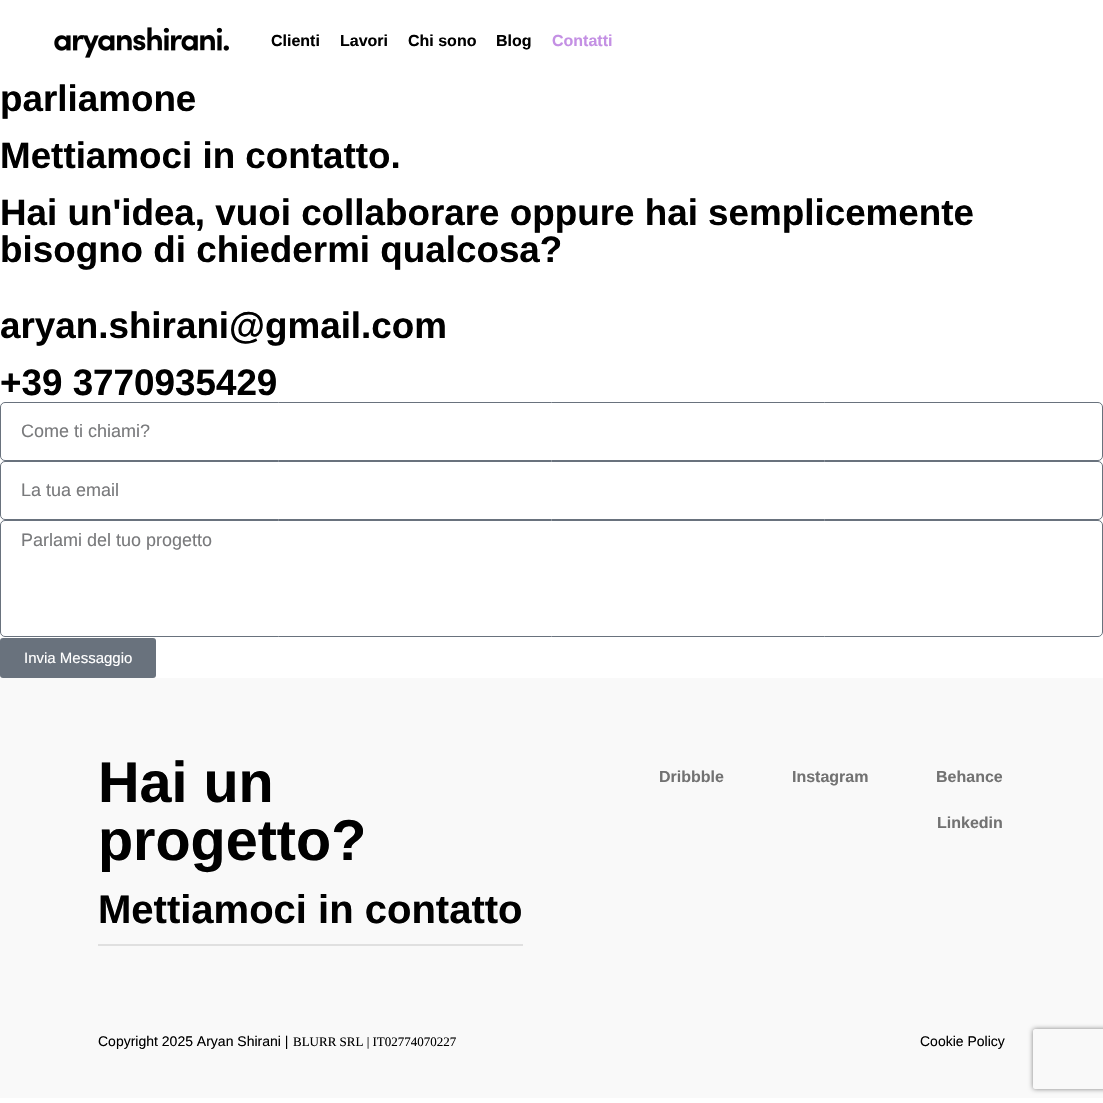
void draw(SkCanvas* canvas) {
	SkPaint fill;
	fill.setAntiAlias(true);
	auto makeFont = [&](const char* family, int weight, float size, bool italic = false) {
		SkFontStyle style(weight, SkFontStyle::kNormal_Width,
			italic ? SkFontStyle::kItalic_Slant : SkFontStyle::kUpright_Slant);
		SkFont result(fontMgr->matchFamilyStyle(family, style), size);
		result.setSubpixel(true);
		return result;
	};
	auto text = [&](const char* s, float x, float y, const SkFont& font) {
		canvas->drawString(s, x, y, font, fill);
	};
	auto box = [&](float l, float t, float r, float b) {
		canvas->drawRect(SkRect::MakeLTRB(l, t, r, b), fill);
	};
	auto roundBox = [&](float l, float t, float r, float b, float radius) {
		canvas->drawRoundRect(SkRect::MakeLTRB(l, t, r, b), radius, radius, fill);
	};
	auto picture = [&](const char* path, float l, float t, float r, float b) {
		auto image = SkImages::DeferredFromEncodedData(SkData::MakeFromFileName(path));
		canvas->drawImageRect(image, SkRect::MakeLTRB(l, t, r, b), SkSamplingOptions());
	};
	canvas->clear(0xFFFFFFFF);
	picture("image0.png", 54, 27, 229, 58);
	fill.setStyle(SkPaint::kStroke_Style);
	fill.setStrokeWidth(1);
	fill.setColor(0xFF69727D);
	canvas->drawRoundRect(SkRect::MakeLTRB(0.5f, 402.5f, 1102.5f, 460.5f), 4.5f, 4.5f, fill);
	canvas->drawRoundRect(SkRect::MakeLTRB(0.5f, 461.5f, 1102.5f, 519.5f), 4.5f, 4.5f, fill);
	canvas->drawRoundRect(SkRect::MakeLTRB(0.5f, 520.5f, 1102.5f, 636.5f), 4.5f, 4.5f, fill);
	fill.setStyle(SkPaint::kFill_Style);
	roundBox(0, 638, 156, 678, 3);
	fill.setColor(0xFFF9F9F9);
	box(0, 678, 1103, 1098);
	canvas->save();
	canvas->clipPath(SkPathBuilder(SkPathFillType::kEvenOdd).moveTo(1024, 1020).lineTo(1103, 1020).lineTo(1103, 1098).lineTo(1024, 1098).close().moveTo(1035, 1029).lineTo(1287, 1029).cubicTo(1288, 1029, 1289, 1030, 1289, 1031).lineTo(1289, 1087).cubicTo(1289, 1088, 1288, 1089, 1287, 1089).lineTo(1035, 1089).cubicTo(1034, 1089, 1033, 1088, 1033, 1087).lineTo(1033, 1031).cubicTo(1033, 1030, 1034, 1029, 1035, 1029).close().detach(), true);
	fill.setColor(0xFF808080);
	fill.setMaskFilter(SkMaskFilter::MakeBlur(kNormal_SkBlurStyle, 2.5f));
	canvas->drawRoundRect(SkRect::MakeLTRB(1033, 1029, 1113, 1089), 2, 2, fill);
	fill.setMaskFilter(nullptr);
	canvas->restore();
	fill.setColor(0xFFE0E0E0);
	box(98, 944, 523, 946);
	auto font1 = makeFont("Liberation Sans", 700, 16);
	fill.setColor(0xFF000000);
	text("Clienti", 271, 46, font1);
	text("Lavori", 340, 46, font1);
	text("Chi sono", 408, 46, font1);
	text("Blog", 496, 46, font1);
	fill.setColor(0xFFC490E4);
	text("Contatti", 552, 46, font1);
	auto font2 = makeFont("Liberation Sans", 700, 36.8f);
	fill.setColor(0xFF000000);
	text("parliamone", 0, 111, font2);
	text("Mettiamoci in contatto.", 0, 168, font2);
	text("Hai un'idea, vuoi collaborare oppure hai semplicemente", 0, 225, font2);
	text("bisogno di chiedermi qualcosa?", 0, 262, font2);
	text("aryan.shirani@gmail.com", 0, 338, font2);
	text("+39 3770935429", 0, 395, font2);
	auto font3 = makeFont("Liberation Sans", 400, 18);
	fill.setColor(0xFF797A7C);
	text("Come ti chiami?", 21, 437, font3);
	text("La tua email", 21, 496, font3);
	text("Parlami del tuo progetto", 21, 546, font3);
	auto font4 = makeFont("Liberation Sans", 400, 15);
	fill.setColor(0xFFFFFFFF);
	text("Invia Messaggio", 24, 663, font4);
	auto font5 = makeFont("Liberation Sans", 700, 57.5f);
	fill.setColor(0xFF000000);
	text("Hai un", 98, 802, font5);
	text("progetto?", 98, 860, font5);
	auto font6 = makeFont("Liberation Sans", 700, 40);
	text("Mettiamoci in contatto", 98, 923, font6);
	fill.setColor(0xFF727272);
	text("Dribbble", 659, 782, font1);
	text("Instagram", 792, 782, font1);
	text("Behance", 936, 782, font1);
	text("Linkedin", 937, 828, font1);
	auto font7 = makeFont("Liberation Sans", 400, 14);
	fill.setColor(0xFF000000);
	text("Copyright 2025 Aryan Shirani |", 98, 1046, font7);
	auto font8 = makeFont("Liberation Serif", 400, 13);
	text("BLURR SRL | IT02774070227", 293, 1046, font8);
	text("Cookie Policy", 920, 1046, font7);
}
